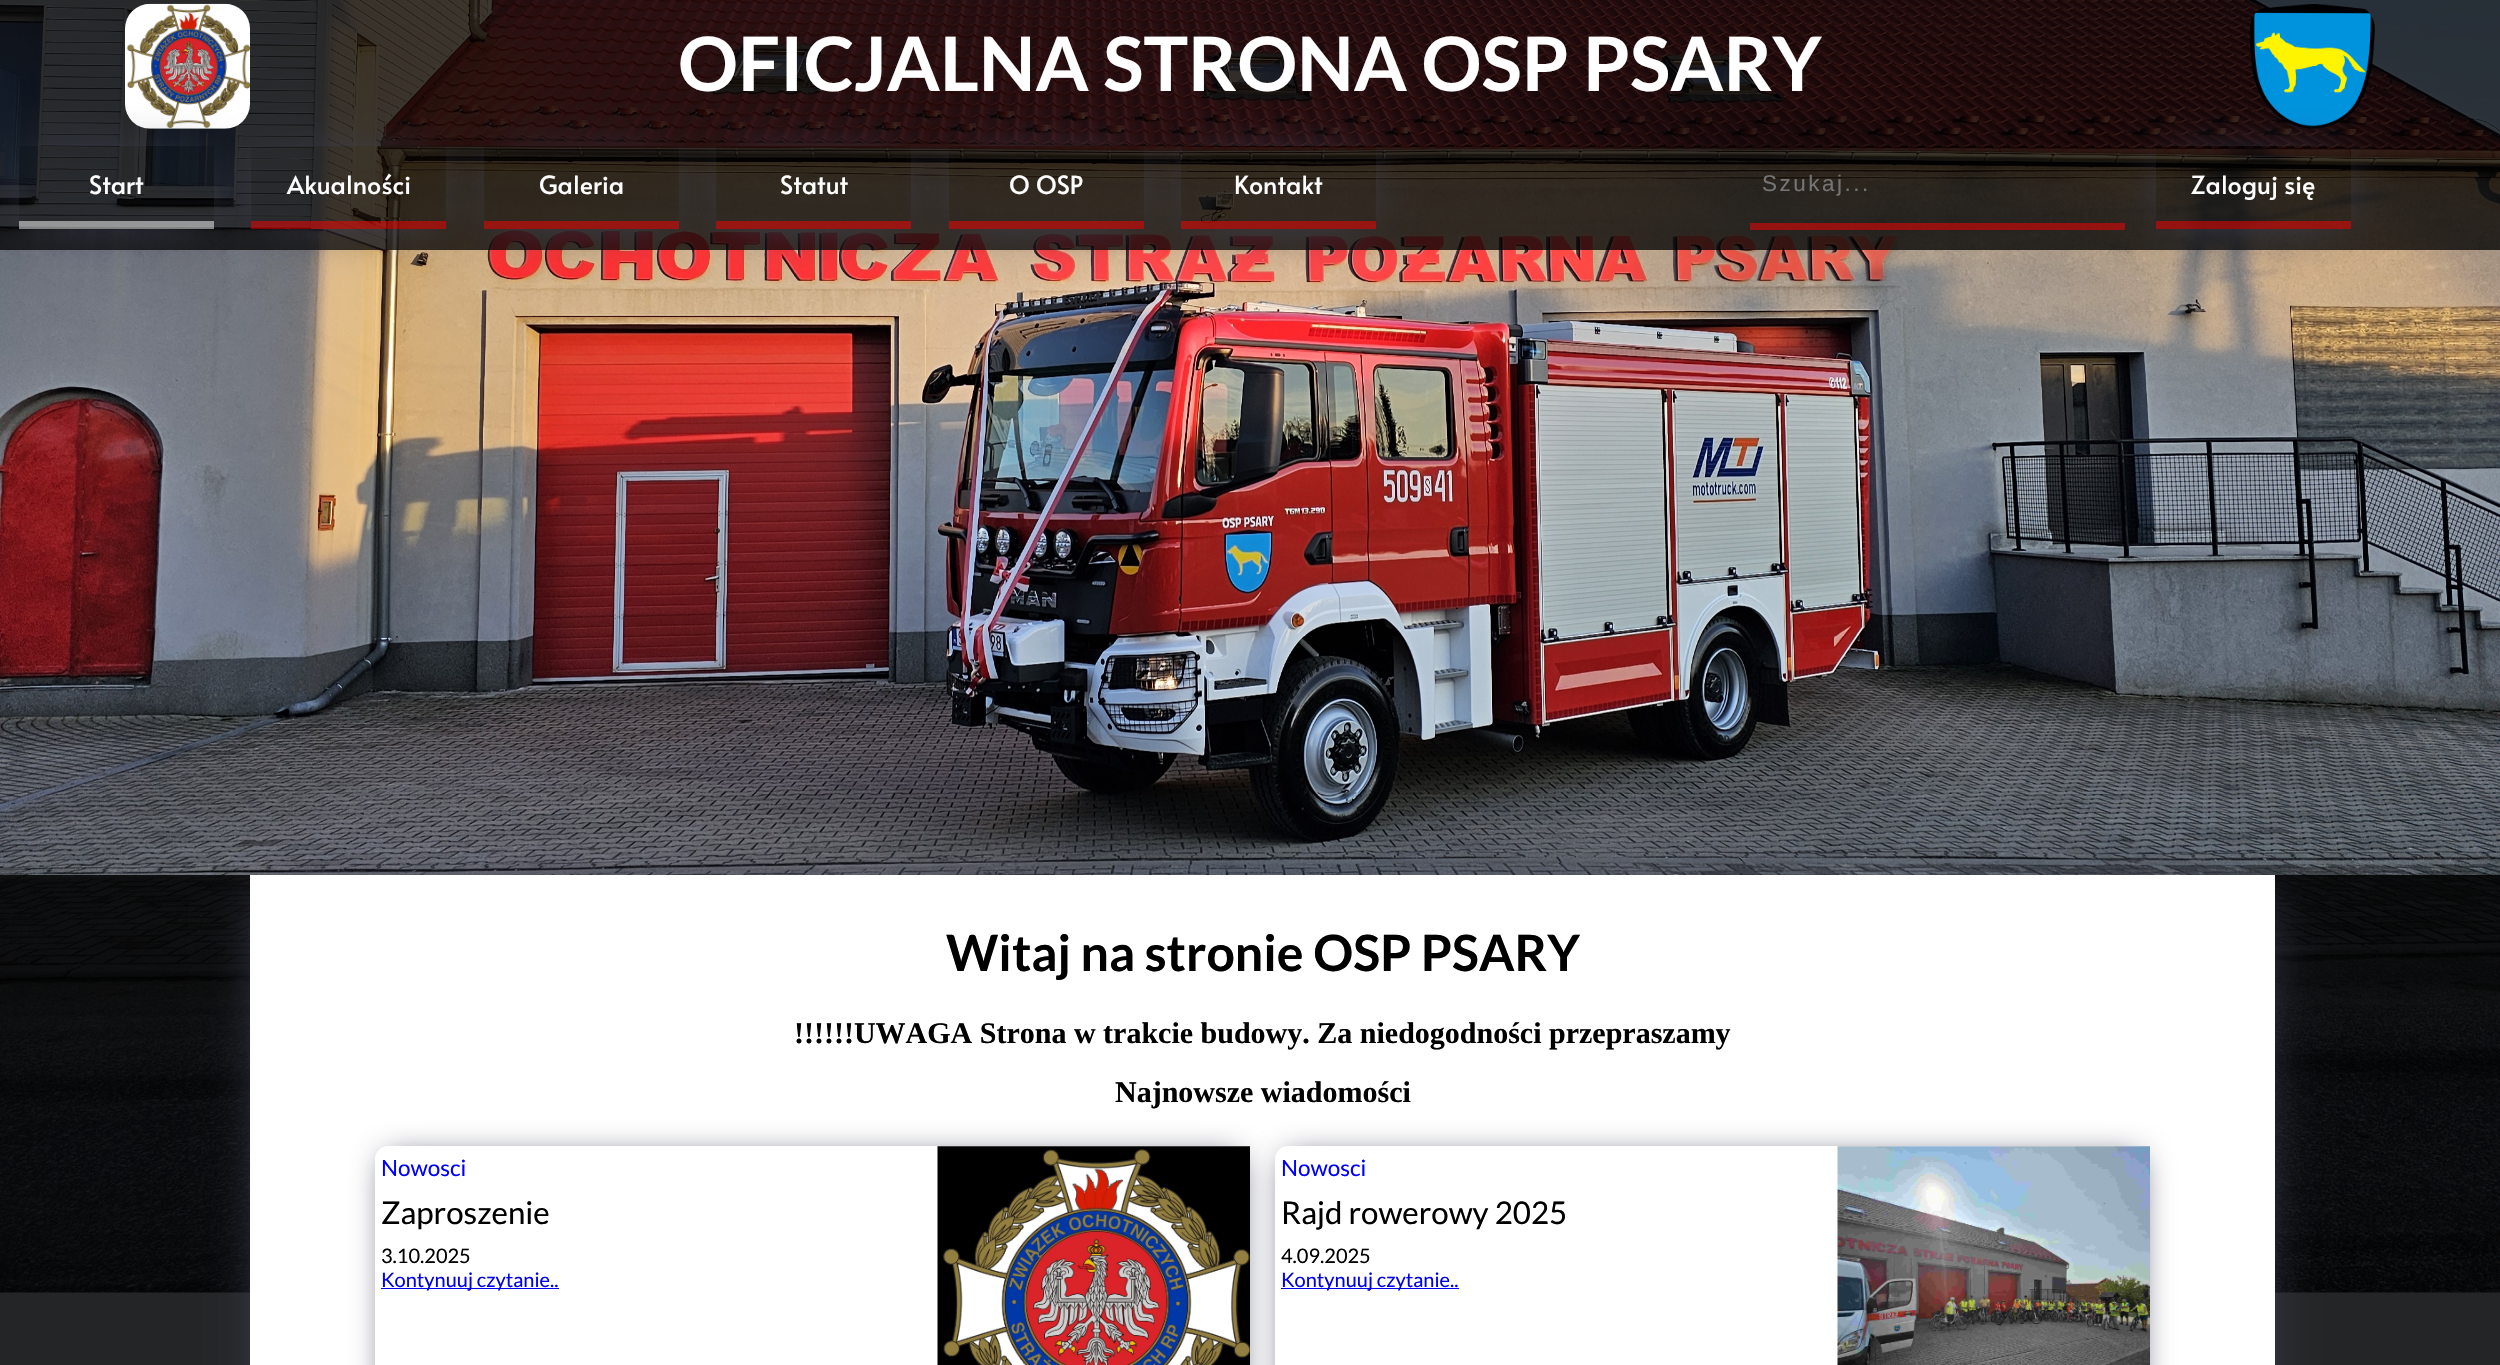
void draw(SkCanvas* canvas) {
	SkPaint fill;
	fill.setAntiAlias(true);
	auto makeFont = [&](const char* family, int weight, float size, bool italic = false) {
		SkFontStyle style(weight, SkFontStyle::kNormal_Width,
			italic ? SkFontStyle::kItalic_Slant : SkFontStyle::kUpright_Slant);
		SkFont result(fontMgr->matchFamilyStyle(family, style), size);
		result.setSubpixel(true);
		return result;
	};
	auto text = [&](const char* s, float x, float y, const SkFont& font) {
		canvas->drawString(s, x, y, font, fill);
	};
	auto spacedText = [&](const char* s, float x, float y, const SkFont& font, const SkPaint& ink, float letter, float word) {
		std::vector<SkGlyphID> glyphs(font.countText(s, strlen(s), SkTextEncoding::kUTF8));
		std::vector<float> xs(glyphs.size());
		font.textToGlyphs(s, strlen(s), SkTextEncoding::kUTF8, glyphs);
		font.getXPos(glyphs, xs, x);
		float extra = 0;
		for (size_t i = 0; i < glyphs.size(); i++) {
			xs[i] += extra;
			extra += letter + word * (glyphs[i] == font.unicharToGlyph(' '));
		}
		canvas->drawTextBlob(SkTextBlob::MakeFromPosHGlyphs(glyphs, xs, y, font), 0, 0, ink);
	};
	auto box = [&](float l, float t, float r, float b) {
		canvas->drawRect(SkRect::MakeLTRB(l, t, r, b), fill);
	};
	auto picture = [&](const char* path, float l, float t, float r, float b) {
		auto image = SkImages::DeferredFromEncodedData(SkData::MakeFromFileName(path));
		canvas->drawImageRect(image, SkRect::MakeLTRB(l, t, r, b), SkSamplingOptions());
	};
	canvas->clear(0xFFF0F8FF);
	picture("image0.png", 0, 0, 2500, 1293);
	fill.setColor(0xC4000000);
	box(0, 0, 2500, 125);
	box(0, 125, 2500, 250);
	picture("image1.png", 125, 3, 250, 129);
	picture("image2.png", 2250, 4, 2375, 129);
	canvas->save();
	canvas->clipPath(SkPathBuilder(SkPathFillType::kEvenOdd).moveTo(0, 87).lineTo(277, 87).lineTo(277, 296).lineTo(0, 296).close().moveTo(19, 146).lineTo(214, 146).lineTo(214, 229).lineTo(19, 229).close().detach(), true);
	fill.setColor(0xFF42445A);
	fill.setMaskFilter(SkMaskFilter::MakeBlur(kNormal_SkBlurStyle, 25));
	canvas->drawRect(SkRect::MakeLTRB(31, 163, 201, 220), fill);
	fill.setMaskFilter(nullptr);
	canvas->restore();
	fill.setColor(0x80FFFFFF);
	box(19, 221, 214, 229);
	canvas->save();
	canvas->clipPath(SkPathBuilder(SkPathFillType::kEvenOdd).moveTo(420, 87).lineTo(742, 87).lineTo(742, 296).lineTo(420, 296).close().moveTo(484, 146).lineTo(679, 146).lineTo(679, 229).lineTo(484, 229).close().detach(), true);
	fill.setColor(0xFF42445A);
	fill.setMaskFilter(SkMaskFilter::MakeBlur(kNormal_SkBlurStyle, 25));
	canvas->drawRect(SkRect::MakeLTRB(496, 163, 666, 220), fill);
	fill.setMaskFilter(nullptr);
	canvas->restore();
	fill.setColor(0x80FF0000);
	box(484, 221, 679, 229);
	canvas->save();
	canvas->clipPath(SkPathBuilder(SkPathFillType::kEvenOdd).moveTo(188, 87).lineTo(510, 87).lineTo(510, 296).lineTo(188, 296).close().moveTo(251, 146).lineTo(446, 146).lineTo(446, 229).lineTo(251, 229).close().detach(), true);
	fill.setColor(0xFF42445A);
	fill.setMaskFilter(SkMaskFilter::MakeBlur(kNormal_SkBlurStyle, 25));
	canvas->drawRect(SkRect::MakeLTRB(264, 163, 434, 220), fill);
	fill.setMaskFilter(nullptr);
	canvas->restore();
	fill.setColor(0x80FF0000);
	box(251, 221, 446, 229);
	canvas->save();
	canvas->clipPath(SkPathBuilder(SkPathFillType::kEvenOdd).moveTo(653, 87).lineTo(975, 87).lineTo(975, 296).lineTo(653, 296).close().moveTo(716, 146).lineTo(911, 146).lineTo(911, 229).lineTo(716, 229).close().detach(), true);
	fill.setColor(0xFF42445A);
	fill.setMaskFilter(SkMaskFilter::MakeBlur(kNormal_SkBlurStyle, 25));
	canvas->drawRect(SkRect::MakeLTRB(729, 163, 899, 220), fill);
	fill.setMaskFilter(nullptr);
	canvas->restore();
	fill.setColor(0x80FF0000);
	box(716, 221, 911, 229);
	canvas->save();
	canvas->clipPath(SkPathBuilder(SkPathFillType::kEvenOdd).moveTo(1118, 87).lineTo(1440, 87).lineTo(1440, 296).lineTo(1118, 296).close().moveTo(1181, 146).lineTo(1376, 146).lineTo(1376, 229).lineTo(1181, 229).close().detach(), true);
	fill.setColor(0xFF42445A);
	fill.setMaskFilter(SkMaskFilter::MakeBlur(kNormal_SkBlurStyle, 25));
	canvas->drawRect(SkRect::MakeLTRB(1194, 163, 1364, 220), fill);
	fill.setMaskFilter(nullptr);
	canvas->restore();
	fill.setColor(0x80FF0000);
	box(1181, 221, 1376, 229);
	canvas->save();
	canvas->clipPath(SkPathBuilder(SkPathFillType::kEvenOdd).moveTo(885, 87).lineTo(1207, 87).lineTo(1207, 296).lineTo(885, 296).close().moveTo(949, 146).lineTo(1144, 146).lineTo(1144, 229).lineTo(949, 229).close().detach(), true);
	fill.setColor(0xFF42445A);
	fill.setMaskFilter(SkMaskFilter::MakeBlur(kNormal_SkBlurStyle, 25));
	canvas->drawRect(SkRect::MakeLTRB(961, 163, 1131, 220), fill);
	fill.setMaskFilter(nullptr);
	canvas->restore();
	fill.setColor(0x80FF0000);
	box(949, 221, 1144, 229);
	canvas->save();
	canvas->clipPath(SkPathBuilder(SkPathFillType::kEvenOdd).moveTo(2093, 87).lineTo(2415, 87).lineTo(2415, 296).lineTo(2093, 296).close().moveTo(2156, 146).lineTo(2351, 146).lineTo(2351, 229).lineTo(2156, 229).close().detach(), true);
	fill.setColor(0xFF42445A);
	fill.setMaskFilter(SkMaskFilter::MakeBlur(kNormal_SkBlurStyle, 25));
	canvas->drawRect(SkRect::MakeLTRB(2169, 163, 2339, 220), fill);
	fill.setMaskFilter(nullptr);
	canvas->restore();
	fill.setColor(0x80FF0000);
	box(1750, 223, 2125, 230);
	box(2156, 221, 2351, 229);
	fill.setColor(0xD9000000);
	box(0, 875, 2500, 1365);
	fill.setColor(0xFF42445A);
	fill.setMaskFilter(SkMaskFilter::MakeBlur(kNormal_SkBlurStyle, 25));
	canvas->drawRect(SkRect::MakeLTRB(263, 891, 2263, 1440), fill);
	fill.setMaskFilter(nullptr);
	fill.setColor(0xFFFFFFFF);
	box(250, 875, 2275, 1365);
	canvas->save();
	canvas->clipPath(SkPathBuilder(SkPathFillType::kEvenOdd).moveTo(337, 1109).lineTo(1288, 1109).lineTo(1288, 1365).lineTo(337, 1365).close().moveTo(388, 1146).lineTo(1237, 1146).cubicTo(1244, 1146, 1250, 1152, 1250, 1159).lineTo(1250, 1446).cubicTo(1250, 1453, 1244, 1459, 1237, 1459).lineTo(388, 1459).cubicTo(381, 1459, 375, 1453, 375, 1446).lineTo(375, 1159).cubicTo(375, 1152, 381, 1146, 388, 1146).close().detach(), true);
	fill.setColor(0xFF42445A);
	fill.setMaskFilter(SkMaskFilter::MakeBlur(kNormal_SkBlurStyle, 16));
	canvas->drawRoundRect(SkRect::MakeLTRB(386, 1158, 1239, 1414), 1, 1, fill);
	fill.setMaskFilter(nullptr);
	canvas->restore();
	fill.setColor(0xFF0000EE);
	box(381, 1288, 559, 1289);
	picture("image3.png", 937, 1146, 1250, 1365);
	canvas->save();
	canvas->clipPath(SkPathBuilder(SkPathFillType::kEvenOdd).moveTo(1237, 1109).lineTo(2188, 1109).lineTo(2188, 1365).lineTo(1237, 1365).close().moveTo(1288, 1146).lineTo(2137, 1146).cubicTo(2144, 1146, 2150, 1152, 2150, 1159).lineTo(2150, 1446).cubicTo(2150, 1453, 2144, 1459, 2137, 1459).lineTo(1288, 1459).cubicTo(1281, 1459, 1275, 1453, 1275, 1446).lineTo(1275, 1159).cubicTo(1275, 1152, 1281, 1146, 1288, 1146).close().detach(), true);
	fill.setColor(0xFF42445A);
	fill.setMaskFilter(SkMaskFilter::MakeBlur(kNormal_SkBlurStyle, 16));
	canvas->drawRoundRect(SkRect::MakeLTRB(1286, 1158, 2139, 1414), 1, 1, fill);
	fill.setMaskFilter(nullptr);
	canvas->restore();
	fill.setColor(0xFF0000EE);
	box(1281, 1288, 1459, 1289);
	picture("image4.png", 1837, 1146, 2150, 1365);
	auto font1 = makeFont("Lato", 700, 75);
	fill.setColor(0xFFFFFFFF);
	text("OFICJALNA STRONA OSP PSARY", 678, 91, font1);
	auto font2 = makeFont("Alata", 400, 25);
	text("Start", 89, 194, font2);
	text("Akualności", 287, 194, font2);
	text("Galeria", 539, 194, font2);
	text("Statut", 780, 194, font2);
	text("O OSP", 1009, 194, font2);
	text("Kontakt", 1234, 194, font2);
	auto font3 = makeFont("Liberation Sans", 400, 22.5f);
	fill.setColor(0xFF757575);
	spacedText("Szukaj...", 1762, 191, font3, fill, 2.5f, 0);
	fill.setColor(0xFFFFFFFF);
	text("Zaloguj się", 2191, 194, font2);
	auto font4 = makeFont("Lato", 700, 50);
	fill.setColor(0xFF000000);
	text("Witaj na stronie OSP PSARY", 946, 971, font4);
	auto font5 = makeFont("Liberation Serif", 700, 30);
	text("!!!!!!UWAGA Strona w trakcie budowy. Za niedogodności przepraszamy", 794, 1043, font5);
	text("Najnowsze wiadomości", 1115, 1102, font5);
	auto font6 = makeFont("Lato", 400, 22.5f);
	fill.setColor(0xFF0000FF);
	text("Nowosci", 381, 1176, font6);
	auto font7 = makeFont("Lato", 400, 31.25f);
	fill.setColor(0xFF000000);
	text("Zaproszenie", 381, 1224, font7);
	auto font8 = makeFont("Lato", 400, 20);
	text("3.10.2025", 381, 1263, font8);
	fill.setColor(0xFF0000EE);
	text("Kontynuuj czytanie..", 381, 1287, font8);
	fill.setColor(0xFF0000FF);
	text("Nowosci", 1281, 1176, font6);
	fill.setColor(0xFF000000);
	text("Rajd rowerowy 2025", 1281, 1224, font7);
	text("4.09.2025", 1281, 1263, font8);
	fill.setColor(0xFF0000EE);
	text("Kontynuuj czytanie..", 1281, 1287, font8);
}
